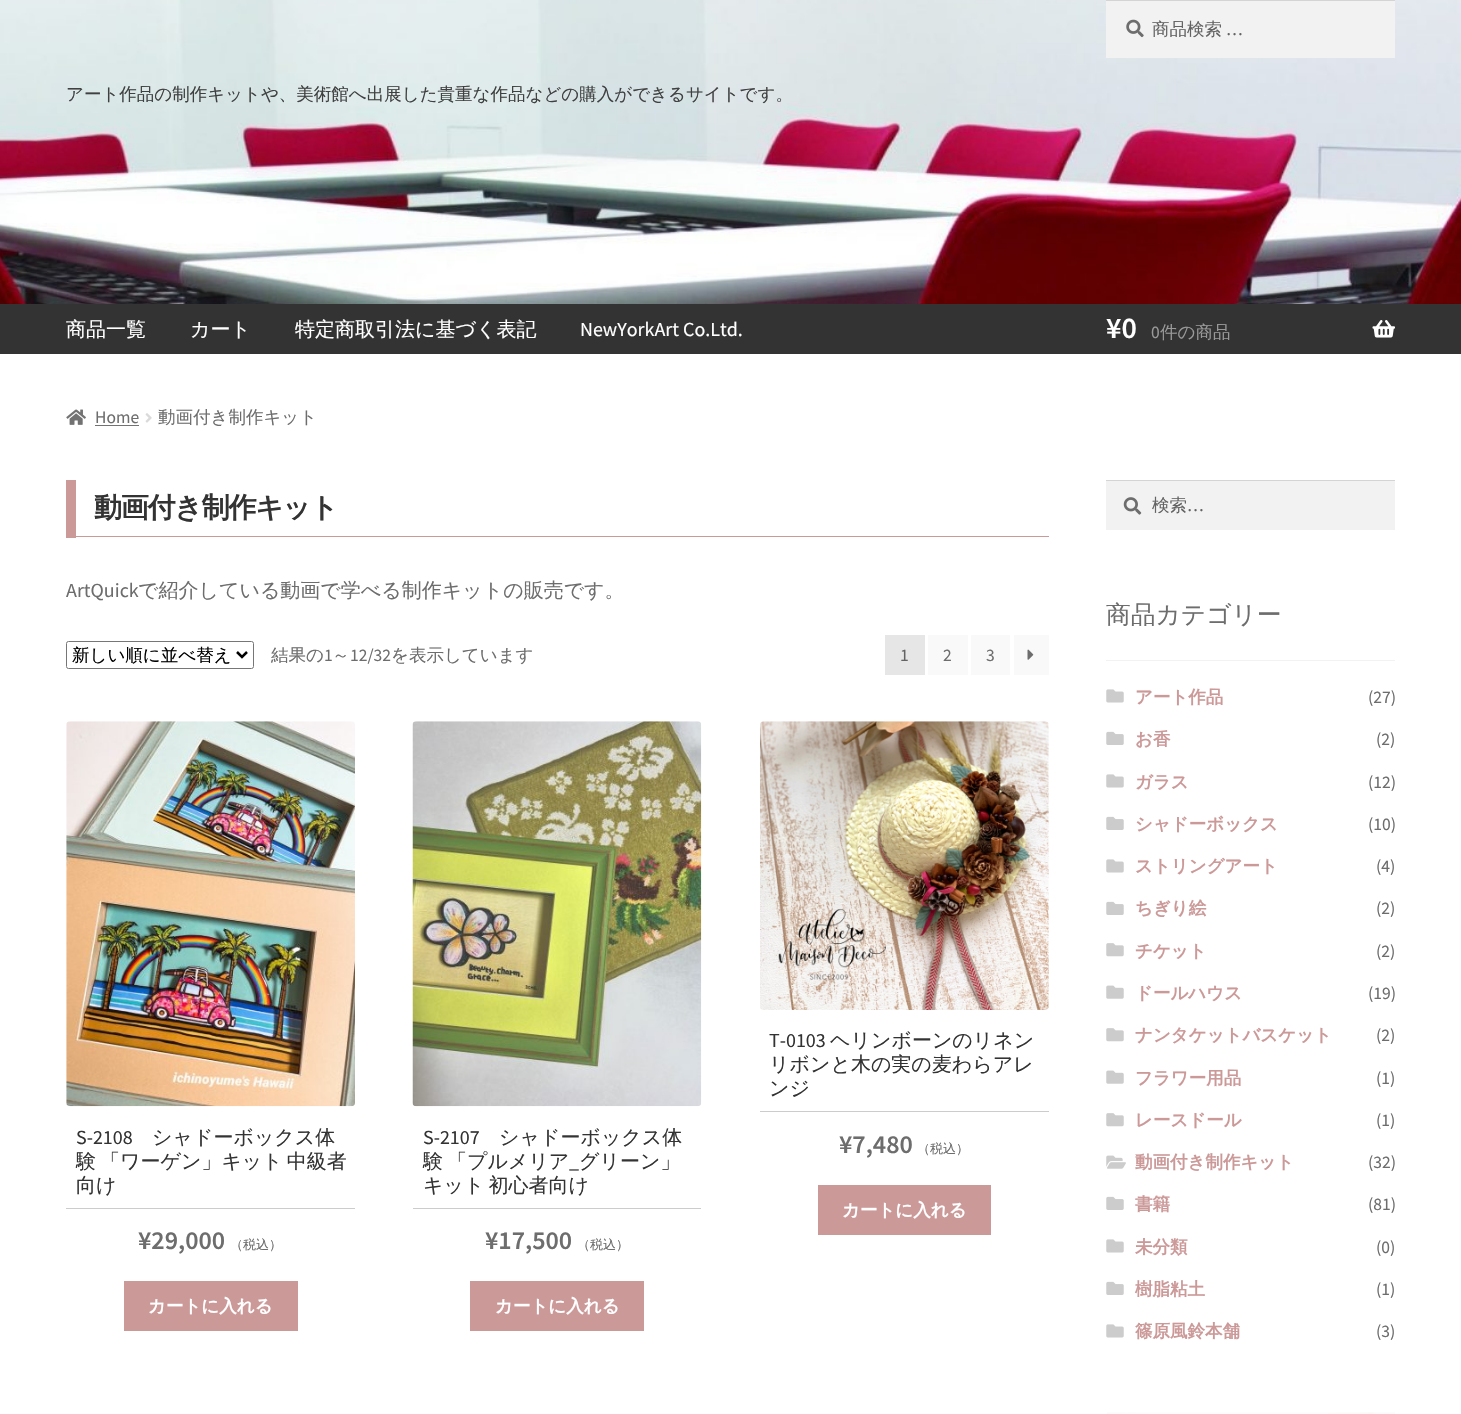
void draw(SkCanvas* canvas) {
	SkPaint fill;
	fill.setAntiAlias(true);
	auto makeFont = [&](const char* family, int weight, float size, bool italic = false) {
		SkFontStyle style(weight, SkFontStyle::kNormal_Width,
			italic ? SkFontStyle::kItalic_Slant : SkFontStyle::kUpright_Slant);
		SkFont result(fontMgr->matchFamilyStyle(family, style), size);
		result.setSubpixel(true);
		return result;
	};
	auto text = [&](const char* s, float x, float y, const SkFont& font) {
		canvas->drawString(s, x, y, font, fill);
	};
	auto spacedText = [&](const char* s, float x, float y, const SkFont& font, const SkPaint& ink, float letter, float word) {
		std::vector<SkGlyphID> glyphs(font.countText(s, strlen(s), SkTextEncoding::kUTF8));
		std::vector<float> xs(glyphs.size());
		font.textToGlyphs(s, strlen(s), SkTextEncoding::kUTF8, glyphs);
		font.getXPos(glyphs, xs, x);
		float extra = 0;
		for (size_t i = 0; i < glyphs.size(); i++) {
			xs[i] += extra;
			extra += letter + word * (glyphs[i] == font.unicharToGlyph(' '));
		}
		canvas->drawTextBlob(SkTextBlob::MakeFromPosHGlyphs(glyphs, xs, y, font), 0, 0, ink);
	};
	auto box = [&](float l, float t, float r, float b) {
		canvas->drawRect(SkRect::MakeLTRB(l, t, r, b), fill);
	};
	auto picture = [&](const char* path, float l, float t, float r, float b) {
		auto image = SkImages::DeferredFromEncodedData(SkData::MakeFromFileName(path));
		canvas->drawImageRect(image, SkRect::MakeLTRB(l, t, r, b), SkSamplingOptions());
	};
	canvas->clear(0xFFFFFFFF);
	picture("image0.png", 0, 0, 1461, 304);
	fill.setColor(0xFFF2F2F2);
	box(1106, 1, 1395, 58);
	picture("image1.png", 1126, 19, 1144, 38);
	fill.setColor(0xFFD4D4D4);
	box(1106, 0, 1395, 1);
	fill.setColor(0xFF333333);
	box(0, 304, 1461, 354);
	picture("image2.png", 1372, 320, 1395, 338);
	picture("image3.png", 66, 409, 86, 425);
	fill.setColor(0xFF727272);
	box(95, 425, 139, 426);
	picture("image4.png", 145, 413, 152, 423);
	fill.setColor(0xFFCC9999);
	box(76, 536, 1049, 537);
	box(66, 480, 76, 538);
	fill.setStyle(SkPaint::kStroke_Style);
	fill.setStrokeWidth(1);
	fill.setColor(0xFF767676);
	canvas->drawRoundRect(SkRect::MakeLTRB(66.5f, 641.5f, 253.5f, 668.5f), 2, 2, fill);
	fill.setStrokeWidth(2.5f);
	fill.setColor(0xFF000000);
	canvas->drawPath(SkPathBuilder().moveTo(237, 652).lineTo(242, 657).lineTo(247, 652).detach(), fill);
	fill.setStyle(SkPaint::kFill_Style);
	fill.setColor(0xFFE6E6E6);
	box(885, 635, 925, 675);
	fill.setColor(0xFFF9F9F9);
	box(928, 635, 968, 675);
	box(971, 635, 1010, 675);
	box(1014, 635, 1049, 675);
	picture("image5.png", 1027, 649, 1034, 660);
	picture("image6.png", 66, 721, 355, 1107);
	fill.setColor(0xFFCCCCCC);
	box(66, 1208, 355, 1209);
	fill.setColor(0xFFCC9999);
	box(124, 1281, 298, 1331);
	picture("image7.png", 412, 721, 702, 1107);
	fill.setColor(0xFFCCCCCC);
	box(413, 1208, 701, 1209);
	fill.setColor(0xFFCC9999);
	box(470, 1281, 644, 1331);
	picture("image8.png", 760, 721, 1049, 1010);
	fill.setColor(0xFFCCCCCC);
	box(760, 1111, 1049, 1112);
	fill.setColor(0xFFCC9999);
	box(818, 1185, 991, 1235);
	fill.setColor(0xFFF2F2F2);
	box(1106, 481, 1395, 530);
	picture("image9.png", 1123, 497, 1142, 515);
	fill.setColor(0xFFD4D4D4);
	box(1106, 480, 1395, 481);
	fill.setColor(0xFFF2F2F2);
	box(1106, 660, 1395, 661);
	picture("image10.png", 1106, 689, 1124, 703);
	picture("image11.png", 1106, 731, 1124, 745);
	picture("image10.png", 1106, 774, 1124, 788);
	picture("image11.png", 1106, 816, 1124, 830);
	picture("image10.png", 1106, 859, 1124, 873);
	picture("image11.png", 1106, 901, 1124, 915);
	picture("image12.png", 1106, 943, 1124, 957);
	picture("image13.png", 1106, 985, 1124, 999);
	picture("image12.png", 1106, 1028, 1124, 1042);
	picture("image13.png", 1106, 1070, 1124, 1084);
	picture("image12.png", 1106, 1113, 1124, 1127);
	picture("image14.png", 1106, 1155, 1126, 1169);
	picture("image11.png", 1106, 1196, 1124, 1210);
	picture("image10.png", 1106, 1239, 1124, 1253);
	picture("image11.png", 1106, 1281, 1124, 1295);
	picture("image10.png", 1106, 1324, 1124, 1338);
	picture("image15.png", 1107, 1412, 1395, 1414);
	auto font1 = makeFont("WenQuanYi Zen Hei", 500, 17.5f);
	fill.setColor(0xFF636363);
	text("商品検索", 1152, 35, font1);
	auto font2 = makeFont("Source Sans Pro", 400, 17.5f);
	text("…", 1226, 35, font2);
	fill.setColor(0xFF404040);
	text("アート作品の制作キットや、美術館へ出展した貴重な作品などの購入ができるサイトです。", 66, 100, font1);
	auto font3 = makeFont("WenQuanYi Zen Hei", 500, 20);
	fill.setColor(0xFFFFFFFF);
	text("商品一覧", 66, 336, font3);
	text("カート", 190, 336, font3);
	text("特定商取引法に基づく表記", 295, 336, font3);
	auto font4 = makeFont("Source Sans Pro", 400, 20);
	text("NewYorkArt Co.Ltd.", 580, 336, font4);
	auto font5 = makeFont("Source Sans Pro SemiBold", 600, 30);
	text("¥0", 1106, 338, font5);
	fill.setColor(0xFF999999);
	text("0", 1151, 338, font2);
	text("件の商品", 1160, 338, font1);
	fill.setColor(0xFF6D6D6D);
	text("Home", 95, 423, font2);
	text("動画付き制作キット", 158, 423, font1);
	auto font6 = makeFont("WenQuanYi Zen Hei", 700, 28);
	fill.setColor(0xFF333333);
	spacedText("動画付き制作キット", 94, 517, font6, fill, -1.25f, 0);
	fill.setColor(0xFF6D6D6D);
	text("ArtQuick", 66, 597, font4);
	text("で紹介している動画で学べる制作キットの販売です。", 138, 597, font3);
	fill.setColor(0xFF000000);
	text("新しい順に並べ替え", 72, 661, font1);
	fill.setColor(0xFF6D6D6D);
	text("結果の", 271, 661, font1);
	text("1", 324, 661, font2);
	text("～", 332, 661, font1);
	text("12/32", 350, 661, font2);
	text("を表示しています", 391, 661, font1);
	fill.setColor(0xFF636363);
	text("1", 900, 661, font2);
	fill.setColor(0xFF6D6D6D);
	text("2", 943, 661, font2);
	text("3", 986, 661, font2);
	fill.setColor(0xFF333333);
	text("S-2108", 76, 1144, font4);
	text("シャドーボックス体", 152, 1144, font3);
	spacedText("験 「ワーゲン」キット 中級者", 76, 1168, font3, fill, 0, -2);
	text("向け", 76, 1192, font3);
	auto font7 = makeFont("Source Sans Pro SemiBold", 600, 26);
	fill.setColor(0xFF6D6D6D);
	text("¥29,000", 138, 1249, font7);
	auto font8 = makeFont("WenQuanYi Zen Hei", 500, 13);
	text("（税込）", 230, 1249, font8);
	auto font9 = makeFont("WenQuanYi Zen Hei", 700, 17.5f);
	fill.setColor(0xFFFFFFFF);
	text("カートに入れる", 148, 1312, font9);
	fill.setColor(0xFF333333);
	text("S-2107", 423, 1144, font4);
	text("シャドーボックス体", 499, 1144, font3);
	spacedText("験 「プルメリア", 423, 1168, font3, fill, 0, -2);
	text("_", 569, 1168, font4);
	text("グリーン」", 579, 1168, font3);
	spacedText("キット 初心者向け", 423, 1192, font3, fill, 0, -2);
	fill.setColor(0xFF6D6D6D);
	text("¥17,500", 485, 1249, font7);
	text("（税込）", 577, 1249, font8);
	fill.setColor(0xFFFFFFFF);
	text("カートに入れる", 495, 1312, font9);
	fill.setColor(0xFF333333);
	text("T-0103", 769, 1047, font4);
	text("ヘリンボーンのリネン", 830, 1047, font3);
	text("リボンと木の実の麦わらアレ", 769, 1071, font3);
	text("ンジ", 769, 1095, font3);
	fill.setColor(0xFF6D6D6D);
	text("¥7,480", 839, 1153, font7);
	text("（税込）", 917, 1153, font8);
	fill.setColor(0xFFFFFFFF);
	text("カートに入れる", 842, 1216, font9);
	fill.setColor(0xFF636363);
	text("検索", 1152, 511, font1);
	text("…", 1187, 511, font2);
	auto font10 = makeFont("WenQuanYi Zen Hei", 500, 24.75f);
	fill.setColor(0xFF6D6D6D);
	text("商品カテゴリー", 1106, 623, font10);
	fill.setColor(0xFFCC9999);
	text("アート作品", 1135, 703, font9);
	fill.setColor(0xFF6D6D6D);
	text("(27)", 1368, 703, font2);
	fill.setColor(0xFFCC9999);
	text("お香", 1135, 745, font9);
	fill.setColor(0xFF6D6D6D);
	text("(2)", 1376, 745, font2);
	fill.setColor(0xFFCC9999);
	text("ガラス", 1135, 788, font9);
	fill.setColor(0xFF6D6D6D);
	text("(12)", 1368, 788, font2);
	fill.setColor(0xFFCC9999);
	text("シャドーボックス", 1135, 830, font9);
	fill.setColor(0xFF6D6D6D);
	text("(10)", 1368, 830, font2);
	fill.setColor(0xFFCC9999);
	text("ストリングアート", 1135, 872, font9);
	fill.setColor(0xFF6D6D6D);
	text("(4)", 1376, 872, font2);
	fill.setColor(0xFFCC9999);
	text("ちぎり絵", 1135, 914, font9);
	fill.setColor(0xFF6D6D6D);
	text("(2)", 1376, 914, font2);
	fill.setColor(0xFFCC9999);
	text("チケット", 1135, 957, font9);
	fill.setColor(0xFF6D6D6D);
	text("(2)", 1376, 957, font2);
	fill.setColor(0xFFCC9999);
	text("ドールハウス", 1135, 999, font9);
	fill.setColor(0xFF6D6D6D);
	text("(19)", 1368, 999, font2);
	fill.setColor(0xFFCC9999);
	text("ナンタケットバスケット", 1135, 1041, font9);
	fill.setColor(0xFF6D6D6D);
	text("(2)", 1376, 1041, font2);
	fill.setColor(0xFFCC9999);
	text("フラワー用品", 1135, 1084, font9);
	fill.setColor(0xFF6D6D6D);
	text("(1)", 1376, 1084, font2);
	fill.setColor(0xFFCC9999);
	text("レースドール", 1135, 1126, font9);
	fill.setColor(0xFF6D6D6D);
	text("(1)", 1376, 1126, font2);
	fill.setColor(0xFFCC9999);
	text("動画付き制作キット", 1135, 1168, font9);
	fill.setColor(0xFF6D6D6D);
	text("(32)", 1368, 1168, font2);
	fill.setColor(0xFFCC9999);
	text("書籍", 1135, 1210, font9);
	fill.setColor(0xFF6D6D6D);
	text("(81)", 1368, 1210, font2);
	fill.setColor(0xFFCC9999);
	text("未分類", 1135, 1253, font9);
	fill.setColor(0xFF6D6D6D);
	text("(0)", 1376, 1253, font2);
	fill.setColor(0xFFCC9999);
	text("樹脂粘土", 1135, 1295, font9);
	fill.setColor(0xFF6D6D6D);
	text("(1)", 1376, 1295, font2);
	fill.setColor(0xFFCC9999);
	text("篠原風鈴本舗", 1135, 1337, font9);
	fill.setColor(0xFF6D6D6D);
	text("(3)", 1376, 1337, font2);
}
